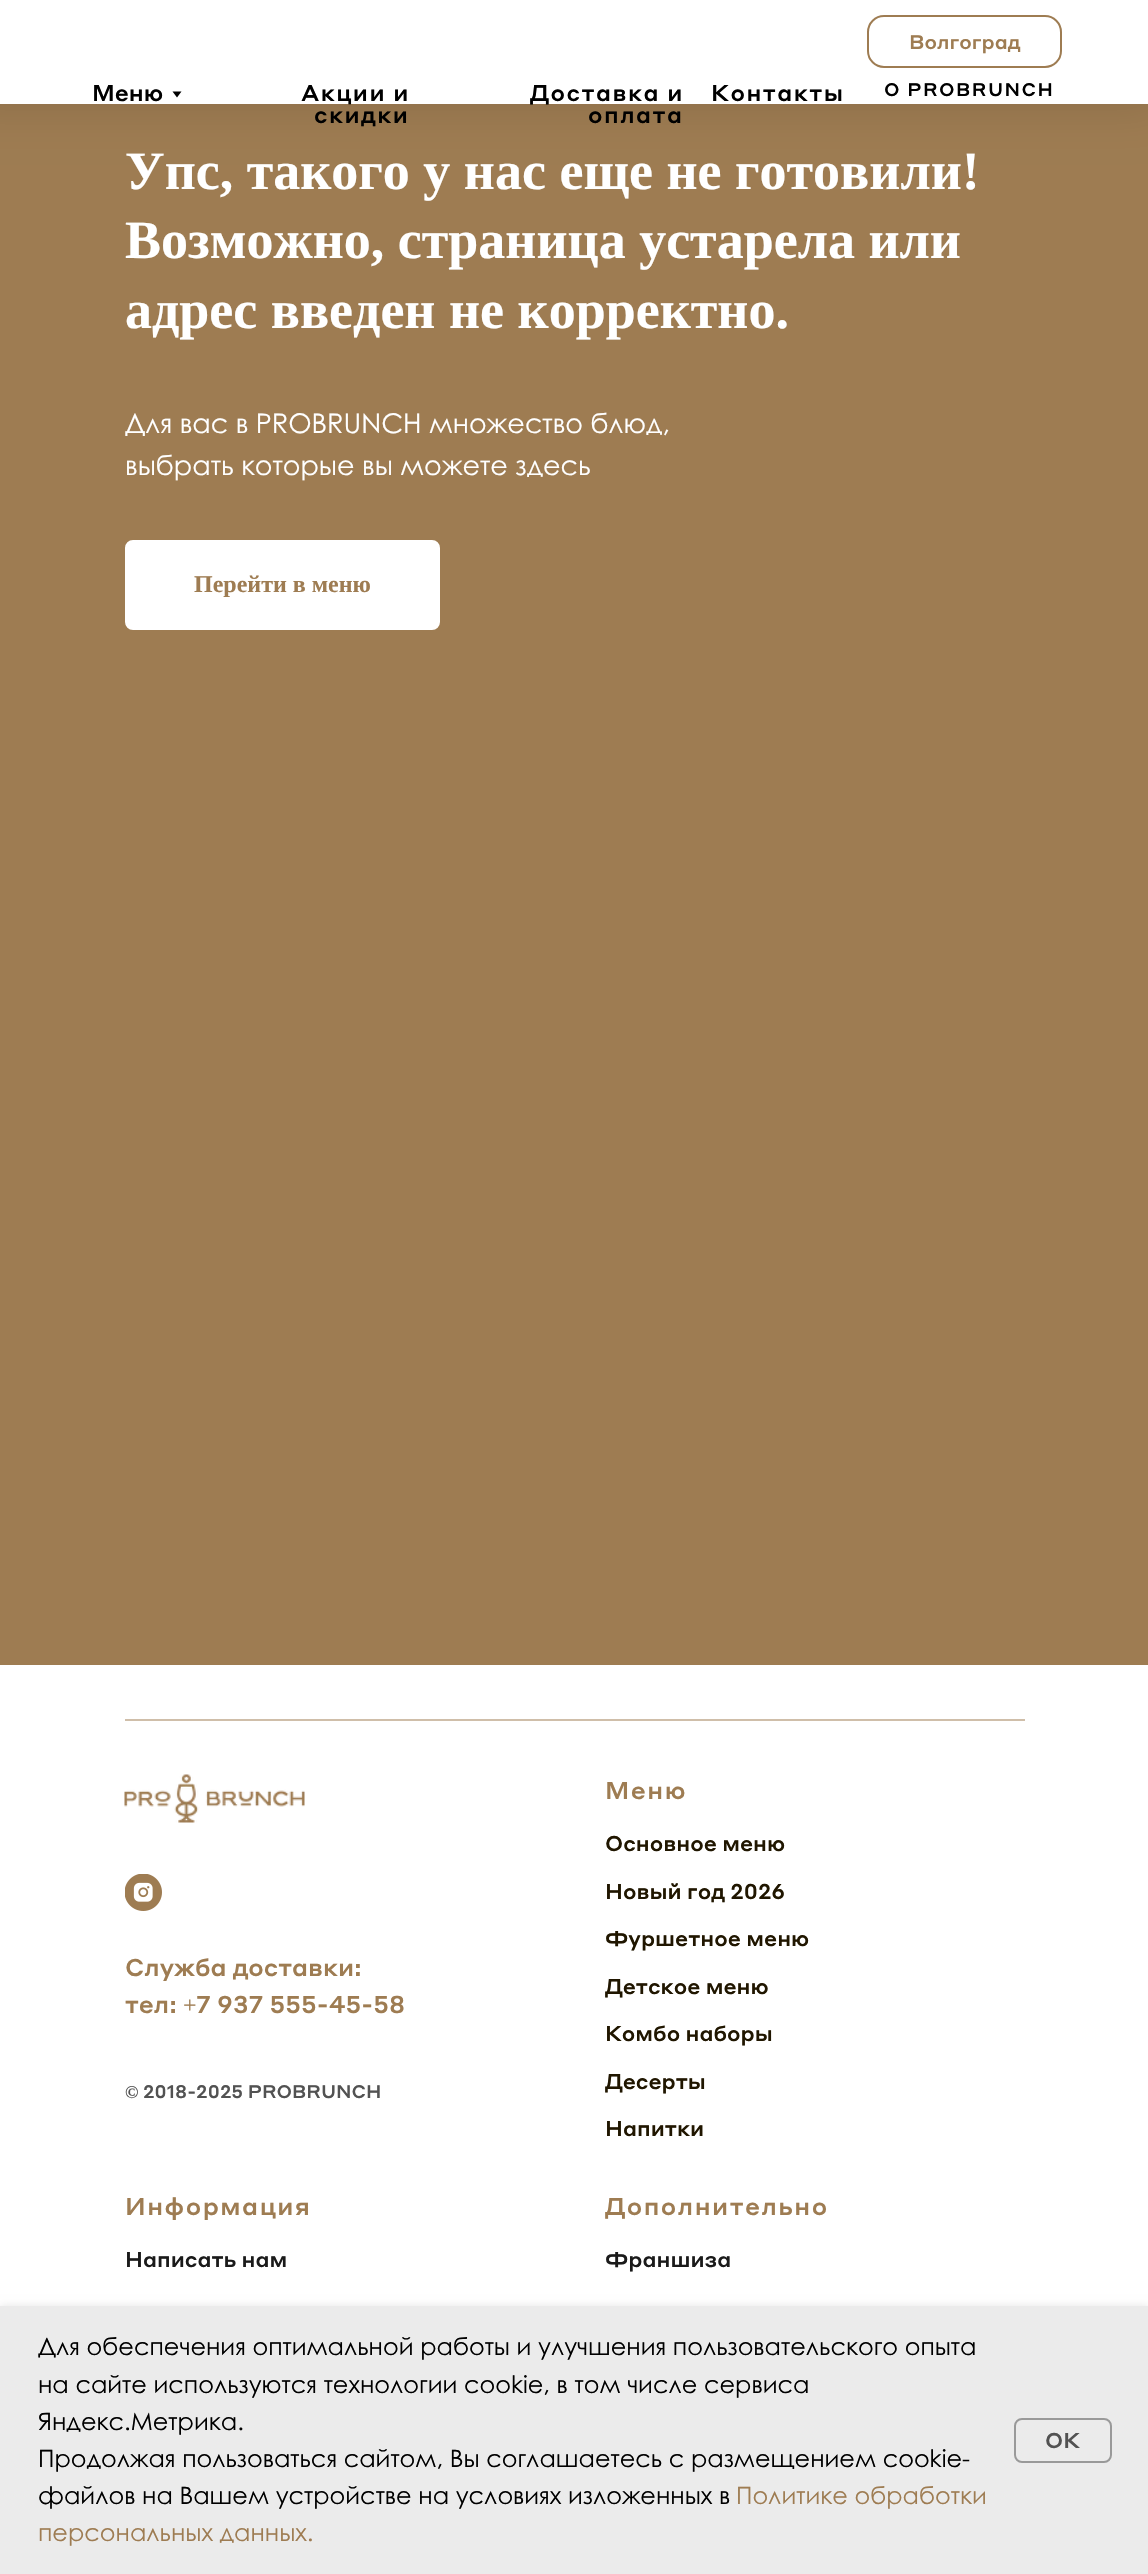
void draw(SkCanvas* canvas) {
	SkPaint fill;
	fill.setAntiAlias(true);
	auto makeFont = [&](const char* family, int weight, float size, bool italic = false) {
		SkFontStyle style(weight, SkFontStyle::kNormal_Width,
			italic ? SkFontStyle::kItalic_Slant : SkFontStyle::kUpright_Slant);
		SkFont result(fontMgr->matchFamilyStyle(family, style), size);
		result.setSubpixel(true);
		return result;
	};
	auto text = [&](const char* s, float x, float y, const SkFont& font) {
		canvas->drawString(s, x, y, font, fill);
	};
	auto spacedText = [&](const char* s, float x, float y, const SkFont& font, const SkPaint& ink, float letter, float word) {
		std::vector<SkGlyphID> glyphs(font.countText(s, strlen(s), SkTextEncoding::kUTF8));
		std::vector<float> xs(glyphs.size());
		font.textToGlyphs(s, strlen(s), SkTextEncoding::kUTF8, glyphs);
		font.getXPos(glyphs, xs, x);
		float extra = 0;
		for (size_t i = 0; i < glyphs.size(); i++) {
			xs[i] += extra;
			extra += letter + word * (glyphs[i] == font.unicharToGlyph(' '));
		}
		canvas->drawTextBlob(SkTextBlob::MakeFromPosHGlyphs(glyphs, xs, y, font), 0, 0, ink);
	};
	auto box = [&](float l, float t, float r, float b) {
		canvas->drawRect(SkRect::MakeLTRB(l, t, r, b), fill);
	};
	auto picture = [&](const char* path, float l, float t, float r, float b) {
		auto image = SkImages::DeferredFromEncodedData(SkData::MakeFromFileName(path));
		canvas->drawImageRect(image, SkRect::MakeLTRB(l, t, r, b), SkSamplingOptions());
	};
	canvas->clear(0xFFFFFFFF);
	fill.setColor(0xFF9E7C52);
	box(0, 104, 1148, 1665);
	fill.setColor(0x1A000000);
	fill.setMaskFilter(SkMaskFilter::MakeBlur(kNormal_SkBlurStyle, 22.5f));
	canvas->drawRect(SkRect::MakeLTRB(-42, 8, 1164, 111), fill);
	fill.setMaskFilter(nullptr);
	fill.setColor(0xFFFFFFFF);
	box(0, 0, 1148, 104);
	fill.setStyle(SkPaint::kStroke_Style);
	fill.setStrokeWidth(2);
	fill.setColor(0xFF9E7C52);
	canvas->drawRoundRect(SkRect::MakeLTRB(868, 16, 1061, 67), 16, 16, fill);
	fill.setStyle(SkPaint::kFill_Style);
	fill.setColor(0xFF000000);
	canvas->drawPath(SkPathBuilder().moveTo(172.5f, 91.5f).lineTo(181.5f, 91.5f).lineTo(177, 97.5f).close().detach(), fill);
	fill.setColor(0xFFFFFFFF);
	canvas->drawRoundRect(SkRect::MakeLTRB(126, 541, 439, 629), 7, 7, fill);
	fill.setStyle(SkPaint::kStroke_Style);
	canvas->drawRoundRect(SkRect::MakeLTRB(126, 541, 439, 629), 7, 7, fill);
	fill.setStyle(SkPaint::kFill_Style);
	fill.setColor(0xFFCFBEA9);
	box(125, 1719, 1025, 1721);
	picture("image0.png", 124, 1774, 305, 1823);
	picture("image1.png", 125, 1874, 162, 1911);
	fill.setColor(0x1A000000);
	fill.setMaskFilter(SkMaskFilter::MakeBlur(kNormal_SkBlurStyle, 4));
	canvas->drawRect(SkRect::MakeLTRB(0, 2306, 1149, 2574), fill);
	fill.setMaskFilter(nullptr);
	fill.setColor(0xFFEBEBEB);
	box(0, 2306, 1148, 2574);
	fill.setStyle(SkPaint::kStroke_Style);
	fill.setColor(0xFF999999);
	canvas->drawRoundRect(SkRect::MakeLTRB(1015, 2419, 1111, 2462), 7, 7, fill);
	auto font1 = makeFont("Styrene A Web", 500, 19.5f);
	fill.setStyle(SkPaint::kFill_Style);
	fill.setColor(0xFF9E7C52);
	text("Волгоград", 909, 49, font1);
	auto font2 = makeFont("Styrene A Web", 500, 22.5f);
	fill.setColor(0xFF000000);
	text("Меню", 92, 101, font2);
	spacedText("Акции и", 301, 101, font2, fill, 1.5f, 0);
	spacedText("скидки", 314, 123, font2, fill, 1.5f, 0);
	spacedText("Доставка и", 530, 101, font2, fill, 1.5f, 0);
	spacedText("оплата", 588, 123, font2, fill, 1.5f, 0);
	spacedText("Контакты", 711, 101, font2, fill, 1.5f, 0);
	auto font3 = makeFont("Styrene A Web", 500, 18);
	spacedText("О PROBRUNCH", 884, 96, font3, fill, 1.5f, 0);
	auto font4 = makeFont("Liberation Serif", 700, 54);
	fill.setColor(0xFFFFFFFF);
	text("Упс, такого у нас еще не готовили!", 125, 189, font4);
	text("Возможно, страница устарела или", 125, 258, font4);
	text("адрес введен не корректно.", 125, 328, font4);
	auto font5 = makeFont("Century Gothic", 400, 27);
	text("Для вас в PROBRUNCH множество блюд,", 125, 433, font5);
	text("выбрать которые вы можете здесь", 125, 475, font5);
	auto font6 = makeFont("Liberation Serif", 700, 24);
	fill.setColor(0xFF9E7C52);
	text("Перейти в меню", 194, 592, font6);
	auto font7 = makeFont("Styrene A Web", 500, 24);
	text("Служба доставки:", 125, 1976, font7);
	text("тел:", 125, 2013, font7);
	auto font8 = makeFont("Liberation Serif", 400, 24);
	text("+", 183, 2013, font8);
	text("7 937 555-45-58", 196, 2013, font7);
	auto font9 = makeFont("Liberation Serif", 700, 18);
	fill.setColor(0xFF525252);
	text("©", 125, 2098, font9);
	text("2018-2025 PROBRUNCH", 143, 2098, font3);
	fill.setColor(0xFF9E7C52);
	spacedText("Меню", 605, 1799, font7, fill, 1.5f, 0);
	auto font10 = makeFont("Styrene A Web", 500, 21);
	fill.setColor(0xFF201600);
	text("Основное меню", 605, 1851, font10);
	text("Новый год 2026", 605, 1899, font10);
	text("Фуршетное меню", 605, 1946, font10);
	text("Детское меню", 605, 1994, font10);
	text("Комбо наборы", 605, 2041, font10);
	text("Десерты", 605, 2089, font10);
	text("Напитки", 605, 2136, font10);
	fill.setColor(0xFF9E7C52);
	spacedText("Информация", 125, 2215, font7, fill, 1.5f, 0);
	fill.setColor(0xFF1A1A1A);
	text("Написать нам", 125, 2267, font10);
	fill.setColor(0xFF9E7C52);
	spacedText("Дополнительно", 605, 2215, font7, fill, 1.5f, 0);
	fill.setColor(0xFF1A1A1A);
	text("Франшиза", 605, 2267, font10);
	auto font11 = makeFont("Century Gothic", 400, 24);
	fill.setColor(0xFF000000);
	text("Для обеспечения оптимальной работы и улучшения пользовательского опыта", 38, 2355, font11);
	text("на сайте используются технологии cookie, в том числе сервиса", 38, 2393, font11);
	text("Яндекс.Метрика.", 38, 2430, font11);
	text("Продолжая пользоваться сайтом, Вы соглашаетесь с размещением cookie-", 38, 2467, font11);
	text("файлов на Вашем устройстве на условиях изложенных в", 38, 2504, font11);
	fill.setColor(0xFF9E7C52);
	text("Политике обработки", 736, 2504, font11);
	text("персональных данных.", 38, 2541, font11);
	fill.setColor(0xFF525252);
	text("OK", 1045, 2448, font10);
}
